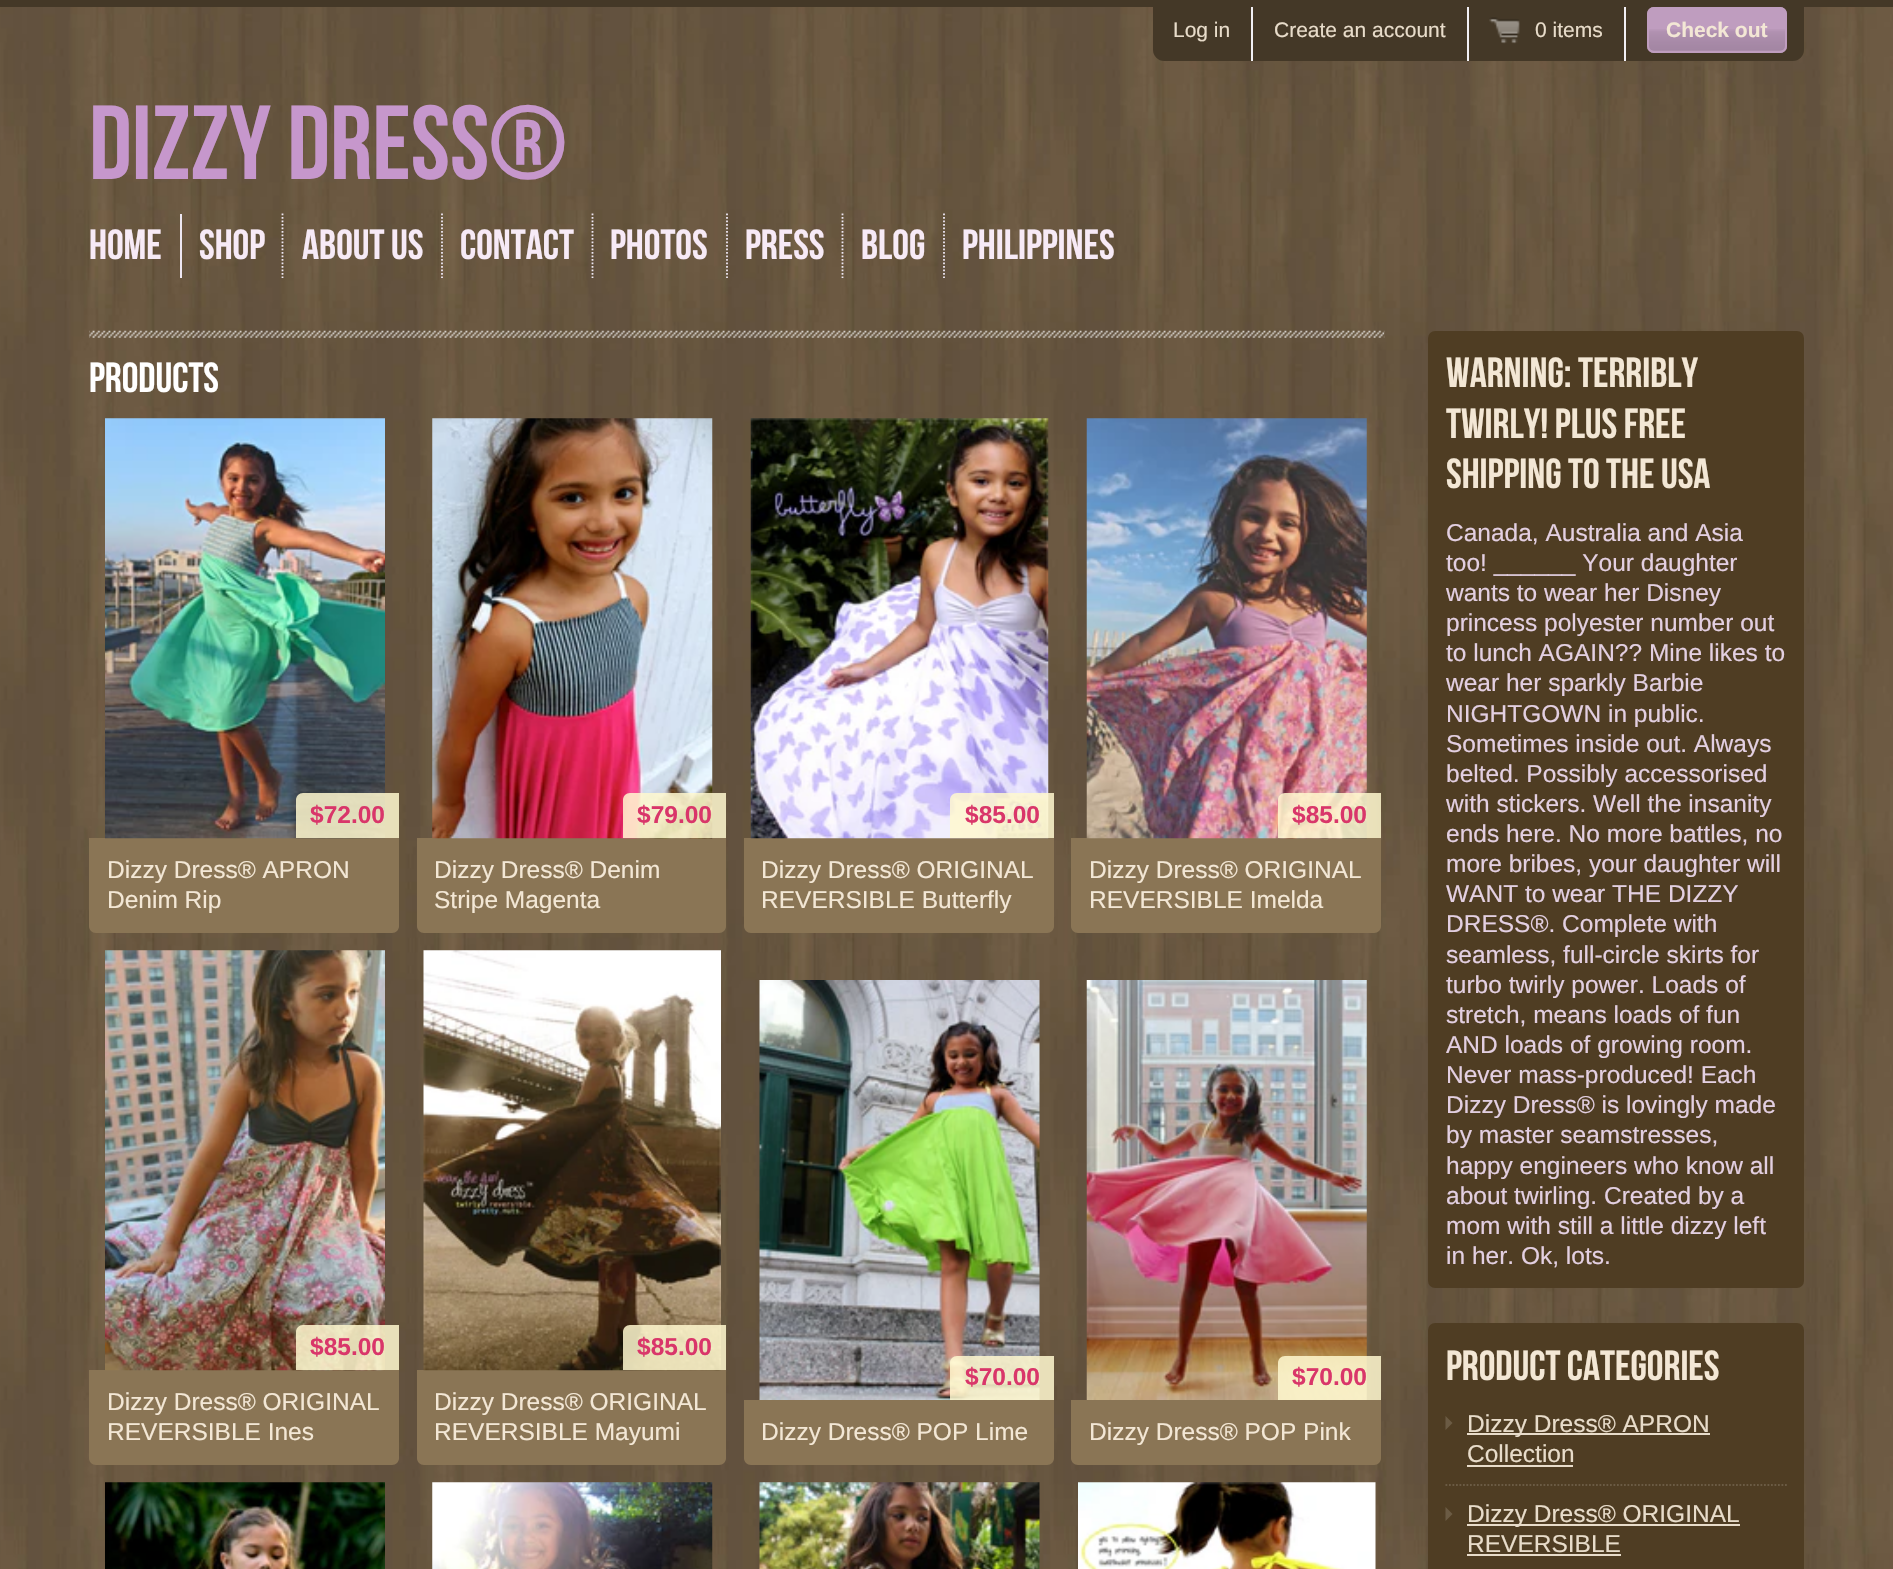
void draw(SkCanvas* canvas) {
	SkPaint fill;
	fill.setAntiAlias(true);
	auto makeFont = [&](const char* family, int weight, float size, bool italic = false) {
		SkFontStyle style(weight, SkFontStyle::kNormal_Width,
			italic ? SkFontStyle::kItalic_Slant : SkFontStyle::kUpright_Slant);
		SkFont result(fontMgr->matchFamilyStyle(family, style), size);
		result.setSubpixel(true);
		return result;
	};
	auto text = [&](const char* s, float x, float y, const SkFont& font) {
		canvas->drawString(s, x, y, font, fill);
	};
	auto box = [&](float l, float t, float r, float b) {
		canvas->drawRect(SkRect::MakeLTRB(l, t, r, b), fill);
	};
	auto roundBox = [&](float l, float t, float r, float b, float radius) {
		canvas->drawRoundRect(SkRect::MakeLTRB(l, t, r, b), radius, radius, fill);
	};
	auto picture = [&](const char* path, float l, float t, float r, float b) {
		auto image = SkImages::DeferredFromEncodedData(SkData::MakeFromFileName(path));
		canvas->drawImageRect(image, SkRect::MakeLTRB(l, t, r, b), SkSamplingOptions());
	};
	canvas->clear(0xFFFFFFFF);
	picture("image0.png", 0, 7, 1893, 1569);
	fill.setColor(0xFF443827);
	box(0, 0, 1893, 7);
	canvas->drawPath(SkPathBuilder().moveTo(1153, 7).lineTo(1804, 7).lineTo(1804, 50).cubicTo(1804, 56, 1799, 61, 1793, 61).lineTo(1164, 61).cubicTo(1158, 61, 1153, 56, 1153, 50).close().detach(), fill);
	fill.setColor(0xFFF2F0F5);
	box(1251, 7, 1253, 61);
	box(1467, 7, 1469, 61);
	box(1624, 7, 1626, 61);
	picture("image1.png", 1489, 17, 1520, 44);
	fill.setColor(0xFFBF9DBF);
	roundBox(1647, 7, 1787, 53, 7);
	picture("image2.png", 1647, 29, 1787, 51);
	fill.setStyle(SkPaint::kStroke_Style);
	fill.setStrokeWidth(2);
	canvas->drawRoundRect(SkRect::MakeLTRB(1648, 8, 1786, 52), 6, 6, fill);
	fill.setStyle(SkPaint::kFill_Style);
	fill.setColor(0xFFEEE7F3);
	box(180, 214, 182, 278);
	fill.setStyle(SkPaint::kStroke_Style);
	fill.setStrokeWidth(1.8f);
	fill.setPathEffect(SkDashPathEffect::Make({{1.75f, 1.75f}}, 0));
	canvas->drawPath(SkPathBuilder().moveTo(282.5f, 213.5f).lineTo(282.5f, 278).detach(), fill);
	fill.setPathEffect(nullptr);
	fill.setPathEffect(SkDashPathEffect::Make({{1.75f, 1.75f}}, 0));
	canvas->drawPath(SkPathBuilder().moveTo(442, 213.5f).lineTo(442, 278).detach(), fill);
	fill.setPathEffect(nullptr);
	fill.setPathEffect(SkDashPathEffect::Make({{1.75f, 1.75f}}, 0));
	canvas->drawPath(SkPathBuilder().moveTo(592.5f, 213.5f).lineTo(592.5f, 278).detach(), fill);
	fill.setPathEffect(nullptr);
	fill.setPathEffect(SkDashPathEffect::Make({{1.75f, 1.75f}}, 0));
	canvas->drawPath(SkPathBuilder().moveTo(727, 213.5f).lineTo(727, 278).detach(), fill);
	fill.setPathEffect(nullptr);
	fill.setPathEffect(SkDashPathEffect::Make({{1.75f, 1.75f}}, 0));
	canvas->drawPath(SkPathBuilder().moveTo(842.5f, 213.5f).lineTo(842.5f, 278).detach(), fill);
	fill.setPathEffect(nullptr);
	fill.setPathEffect(SkDashPathEffect::Make({{1.75f, 1.75f}}, 0));
	canvas->drawPath(SkPathBuilder().moveTo(944, 213.5f).lineTo(944, 278).detach(), fill);
	fill.setPathEffect(nullptr);
	picture("image3.png", 89, 330, 1385, 338);
	fill.setStyle(SkPaint::kFill_Style);
	fill.setColor(0xFF8A7555);
	canvas->drawPath(SkPathBuilder().moveTo(89, 838).lineTo(399, 838).lineTo(399, 926).cubicTo(399, 930, 396, 933, 392, 933).lineTo(96, 933).cubicTo(92, 933, 89, 930, 89, 926).close().detach(), fill);
	picture("image4.png", 105, 418, 385, 839);
	fill.setColor(0xD9FFF8CF);
	canvas->drawPath(SkPathBuilder().moveTo(303, 793).lineTo(399, 793).lineTo(399, 838).lineTo(296, 838).lineTo(296, 800).cubicTo(296, 796, 299, 793, 303, 793).close().detach(), fill);
	fill.setColor(0xFF8A7555);
	canvas->drawPath(SkPathBuilder().moveTo(417, 838).lineTo(726, 838).lineTo(726, 926).cubicTo(726, 930, 723, 933, 719, 933).lineTo(424, 933).cubicTo(420, 933, 417, 930, 417, 926).close().detach(), fill);
	picture("image5.png", 432, 418, 713, 839);
	fill.setColor(0xD9FFF8CF);
	canvas->drawPath(SkPathBuilder().moveTo(630, 793).lineTo(726, 793).lineTo(726, 838).lineTo(623, 838).lineTo(623, 800).cubicTo(623, 796, 626, 793, 630, 793).close().detach(), fill);
	fill.setColor(0xFF8A7555);
	canvas->drawPath(SkPathBuilder().moveTo(744, 838).lineTo(1054, 838).lineTo(1054, 926).cubicTo(1054, 930, 1051, 933, 1047, 933).lineTo(751, 933).cubicTo(747, 933, 744, 930, 744, 926).close().detach(), fill);
	picture("image6.png", 750, 418, 1049, 839);
	fill.setColor(0xD9FFF8CF);
	canvas->drawPath(SkPathBuilder().moveTo(957, 793).lineTo(1054, 793).lineTo(1054, 838).lineTo(950, 838).lineTo(950, 800).cubicTo(950, 796, 953, 793, 957, 793).close().detach(), fill);
	fill.setColor(0xFF8A7555);
	canvas->drawPath(SkPathBuilder().moveTo(1071, 838).lineTo(1381, 838).lineTo(1381, 926).cubicTo(1381, 930, 1378, 933, 1374, 933).lineTo(1078, 933).cubicTo(1074, 933, 1071, 930, 1071, 926).close().detach(), fill);
	picture("image7.png", 1086, 418, 1367, 839);
	fill.setColor(0xD9FFF8CF);
	canvas->drawPath(SkPathBuilder().moveTo(1285, 793).lineTo(1381, 793).lineTo(1381, 838).lineTo(1278, 838).lineTo(1278, 800).cubicTo(1278, 796, 1281, 793, 1285, 793).close().detach(), fill);
	fill.setColor(0xFF8A7555);
	canvas->drawPath(SkPathBuilder().moveTo(89, 1370).lineTo(399, 1370).lineTo(399, 1458).cubicTo(399, 1462, 396, 1465, 392, 1465).lineTo(96, 1465).cubicTo(92, 1465, 89, 1462, 89, 1458).close().detach(), fill);
	picture("image8.png", 105, 950, 385, 1371);
	fill.setColor(0xD9FFF8CF);
	canvas->drawPath(SkPathBuilder().moveTo(303, 1325).lineTo(399, 1325).lineTo(399, 1370).lineTo(296, 1370).lineTo(296, 1332).cubicTo(296, 1328, 299, 1325, 303, 1325).close().detach(), fill);
	fill.setColor(0xFF8A7555);
	canvas->drawPath(SkPathBuilder().moveTo(417, 1370).lineTo(726, 1370).lineTo(726, 1458).cubicTo(726, 1462, 723, 1465, 719, 1465).lineTo(424, 1465).cubicTo(420, 1465, 417, 1462, 417, 1458).close().detach(), fill);
	picture("image9.png", 423, 950, 721, 1371);
	fill.setColor(0xD9FFF8CF);
	canvas->drawPath(SkPathBuilder().moveTo(630, 1325).lineTo(726, 1325).lineTo(726, 1370).lineTo(623, 1370).lineTo(623, 1332).cubicTo(623, 1328, 626, 1325, 630, 1325).close().detach(), fill);
	picture("image10.png", 759, 980, 1040, 1400);
	canvas->drawPath(SkPathBuilder().moveTo(957, 1356).lineTo(1054, 1356).lineTo(1054, 1400).lineTo(950, 1400).lineTo(950, 1363).cubicTo(950, 1359, 953, 1356, 957, 1356).close().detach(), fill);
	fill.setColor(0xFF8A7555);
	canvas->drawPath(SkPathBuilder().moveTo(744, 1400).lineTo(1054, 1400).lineTo(1054, 1458).cubicTo(1054, 1462, 1051, 1465, 1047, 1465).lineTo(751, 1465).cubicTo(747, 1465, 744, 1462, 744, 1458).close().detach(), fill);
	picture("image11.png", 1086, 980, 1367, 1400);
	fill.setColor(0xD9FFF8CF);
	canvas->drawPath(SkPathBuilder().moveTo(1285, 1356).lineTo(1381, 1356).lineTo(1381, 1400).lineTo(1278, 1400).lineTo(1278, 1363).cubicTo(1278, 1359, 1281, 1356, 1285, 1356).close().detach(), fill);
	fill.setColor(0xFF8A7555);
	canvas->drawPath(SkPathBuilder().moveTo(1071, 1400).lineTo(1381, 1400).lineTo(1381, 1458).cubicTo(1381, 1462, 1378, 1465, 1374, 1465).lineTo(1078, 1465).cubicTo(1074, 1465, 1071, 1462, 1071, 1458).close().detach(), fill);
	picture("image12.png", 105, 1482, 385, 1569);
	picture("image13.png", 432, 1482, 713, 1569);
	picture("image14.png", 759, 1482, 1040, 1569);
	picture("image15.png", 1078, 1482, 1376, 1569);
	fill.setColor(0xFF4F3D23);
	roundBox(1428, 331, 1804, 1288, 7);
	roundBox(1428, 1323, 1804, 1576, 7);
	fill.setColor(0xFF6B5B44);
	canvas->drawPath(SkPathBuilder().moveTo(1445.5f, 1430).lineTo(1445.5f, 1416).lineTo(1452.5f, 1423).close().detach(), fill);
	fill.setColor(0xFFE8DCCA);
	box(1467, 1433, 1710, 1435);
	box(1467, 1465, 1573, 1467);
	fill.setStyle(SkPaint::kStroke_Style);
	fill.setColor(0xFF6B5B44);
	fill.setPathEffect(SkDashPathEffect::Make({{1.75f, 1.75f}}, 0));
	canvas->drawPath(SkPathBuilder().moveTo(1445.5f, 1485).lineTo(1787, 1485).detach(), fill);
	fill.setPathEffect(nullptr);
	fill.setStyle(SkPaint::kFill_Style);
	canvas->drawPath(SkPathBuilder().moveTo(1445.5f, 1521).lineTo(1445.5f, 1507).lineTo(1452.5f, 1514).close().detach(), fill);
	fill.setColor(0xFFE8DCCA);
	box(1467, 1524, 1740, 1526);
	box(1467, 1554, 1621, 1556);
	auto font1 = makeFont("Liberation Sans", 400, 21);
	text("Log in", 1173, 37, font1);
	text("Create an account", 1274, 37, font1);
	text("0 items", 1535, 37, font1);
	auto font2 = makeFont("Liberation Sans", 700, 21);
	fill.setColor(0xFFF3E7D5);
	text("Check out", 1666, 37, font2);
	auto font3 = makeFont("Bebas Neue", 400, 105);
	fill.setColor(0xFFC697CC);
	text("Dizzy Dress®", 89, 179, font3);
	auto font4 = makeFont("Bebas Neue", 400, 42);
	fill.setColor(0xFFF7EAF6);
	text("Home", 89, 259, font4);
	text("Shop", 199, 259, font4);
	text("About Us", 302, 259, font4);
	text("Contact", 460, 259, font4);
	text("Photos", 610, 259, font4);
	text("Press", 745, 259, font4);
	text("Blog", 861, 259, font4);
	text("Philippines", 962, 259, font4);
	fill.setColor(0xFFFFFFFF);
	text("Products", 89, 392, font4);
	auto font5 = makeFont("Liberation Sans", 700, 24.5f);
	fill.setColor(0xFFD9366A);
	text("$72.00", 310, 823, font5);
	auto font6 = makeFont("Liberation Sans", 400, 24.5f);
	fill.setColor(0xFFF3E7D5);
	text("Dizzy Dress® APRON", 107, 878, font6);
	text("Denim Rip", 107, 908, font6);
	fill.setColor(0xFFD9366A);
	text("$79.00", 637, 823, font5);
	fill.setColor(0xFFF3E7D5);
	text("Dizzy Dress® Denim", 434, 878, font6);
	text("Stripe Magenta", 434, 908, font6);
	fill.setColor(0xFFD9366A);
	text("$85.00", 965, 823, font5);
	fill.setColor(0xFFF3E7D5);
	text("Dizzy Dress® ORIGINAL", 761, 878, font6);
	text("REVERSIBLE Butterfly", 761, 908, font6);
	fill.setColor(0xFFD9366A);
	text("$85.00", 1292, 823, font5);
	fill.setColor(0xFFF3E7D5);
	text("Dizzy Dress® ORIGINAL", 1089, 878, font6);
	text("REVERSIBLE Imelda", 1089, 908, font6);
	fill.setColor(0xFFD9366A);
	text("$85.00", 310, 1355, font5);
	fill.setColor(0xFFF3E7D5);
	text("Dizzy Dress® ORIGINAL", 107, 1410, font6);
	text("REVERSIBLE Ines", 107, 1440, font6);
	fill.setColor(0xFFD9366A);
	text("$85.00", 637, 1355, font5);
	fill.setColor(0xFFF3E7D5);
	text("Dizzy Dress® ORIGINAL", 434, 1410, font6);
	text("REVERSIBLE Mayumi", 434, 1440, font6);
	fill.setColor(0xFFD9366A);
	text("$70.00", 965, 1385, font5);
	fill.setColor(0xFFF3E7D5);
	text("Dizzy Dress® POP Lime", 761, 1440, font6);
	fill.setColor(0xFFD9366A);
	text("$70.00", 1292, 1385, font5);
	fill.setColor(0xFFF3E7D5);
	text("Dizzy Dress® POP Pink", 1089, 1440, font6);
	text("WARNING: TERRIBLY", 1446, 387, font4);
	text("TWIRLY! PLUS FREE", 1446, 438, font4);
	text("SHIPPING TO THE USA", 1446, 488, font4);
	fill.setColor(0xFFE3CFE1);
	text("Canada, Australia and Asia", 1446, 541, font6);
	text("too! ______ Your daughter", 1446, 571, font6);
	text("wants to wear her Disney", 1446, 601, font6);
	text("princess polyester number out", 1446, 631, font6);
	text("to lunch AGAIN?\077 Mine likes to", 1446, 661, font6);
	text("wear her sparkly Barbie", 1446, 691, font6);
	text("NIGHTGOWN in public.", 1446, 722, font6);
	text("Sometimes inside out. Always", 1446, 752, font6);
	text("belted. Possibly accessorised", 1446, 782, font6);
	text("with stickers. Well the insanity", 1446, 812, font6);
	text("ends here. No more battles, no", 1446, 842, font6);
	text("more bribes, your daughter will", 1446, 872, font6);
	text("WANT to wear THE DIZZY", 1446, 902, font6);
	text("DRESS®. Complete with", 1446, 932, font6);
	text("seamless, full-circle skirts for", 1446, 963, font6);
	text("turbo twirly power. Loads of", 1446, 993, font6);
	text("stretch, means loads of fun", 1446, 1023, font6);
	text("AND loads of growing room.", 1446, 1053, font6);
	text("Never mass-produced! Each", 1446, 1083, font6);
	text("Dizzy Dress® is lovingly made", 1446, 1113, font6);
	text("by master seamstresses,", 1446, 1143, font6);
	text("happy engineers who know all", 1446, 1174, font6);
	text("about twirling. Created by a", 1446, 1204, font6);
	text("mom with still a little dizzy left", 1446, 1234, font6);
	text("in her. Ok, lots.", 1446, 1264, font6);
	fill.setColor(0xFFF3E7D5);
	text("Product Categories", 1446, 1380, font4);
	fill.setColor(0xFFE8DCCA);
	text("Dizzy Dress® APRON", 1467, 1432, font6);
	text("Collection", 1467, 1462, font6);
	text("Dizzy Dress® ORIGINAL", 1467, 1522, font6);
	text("REVERSIBLE", 1467, 1552, font6);
}
